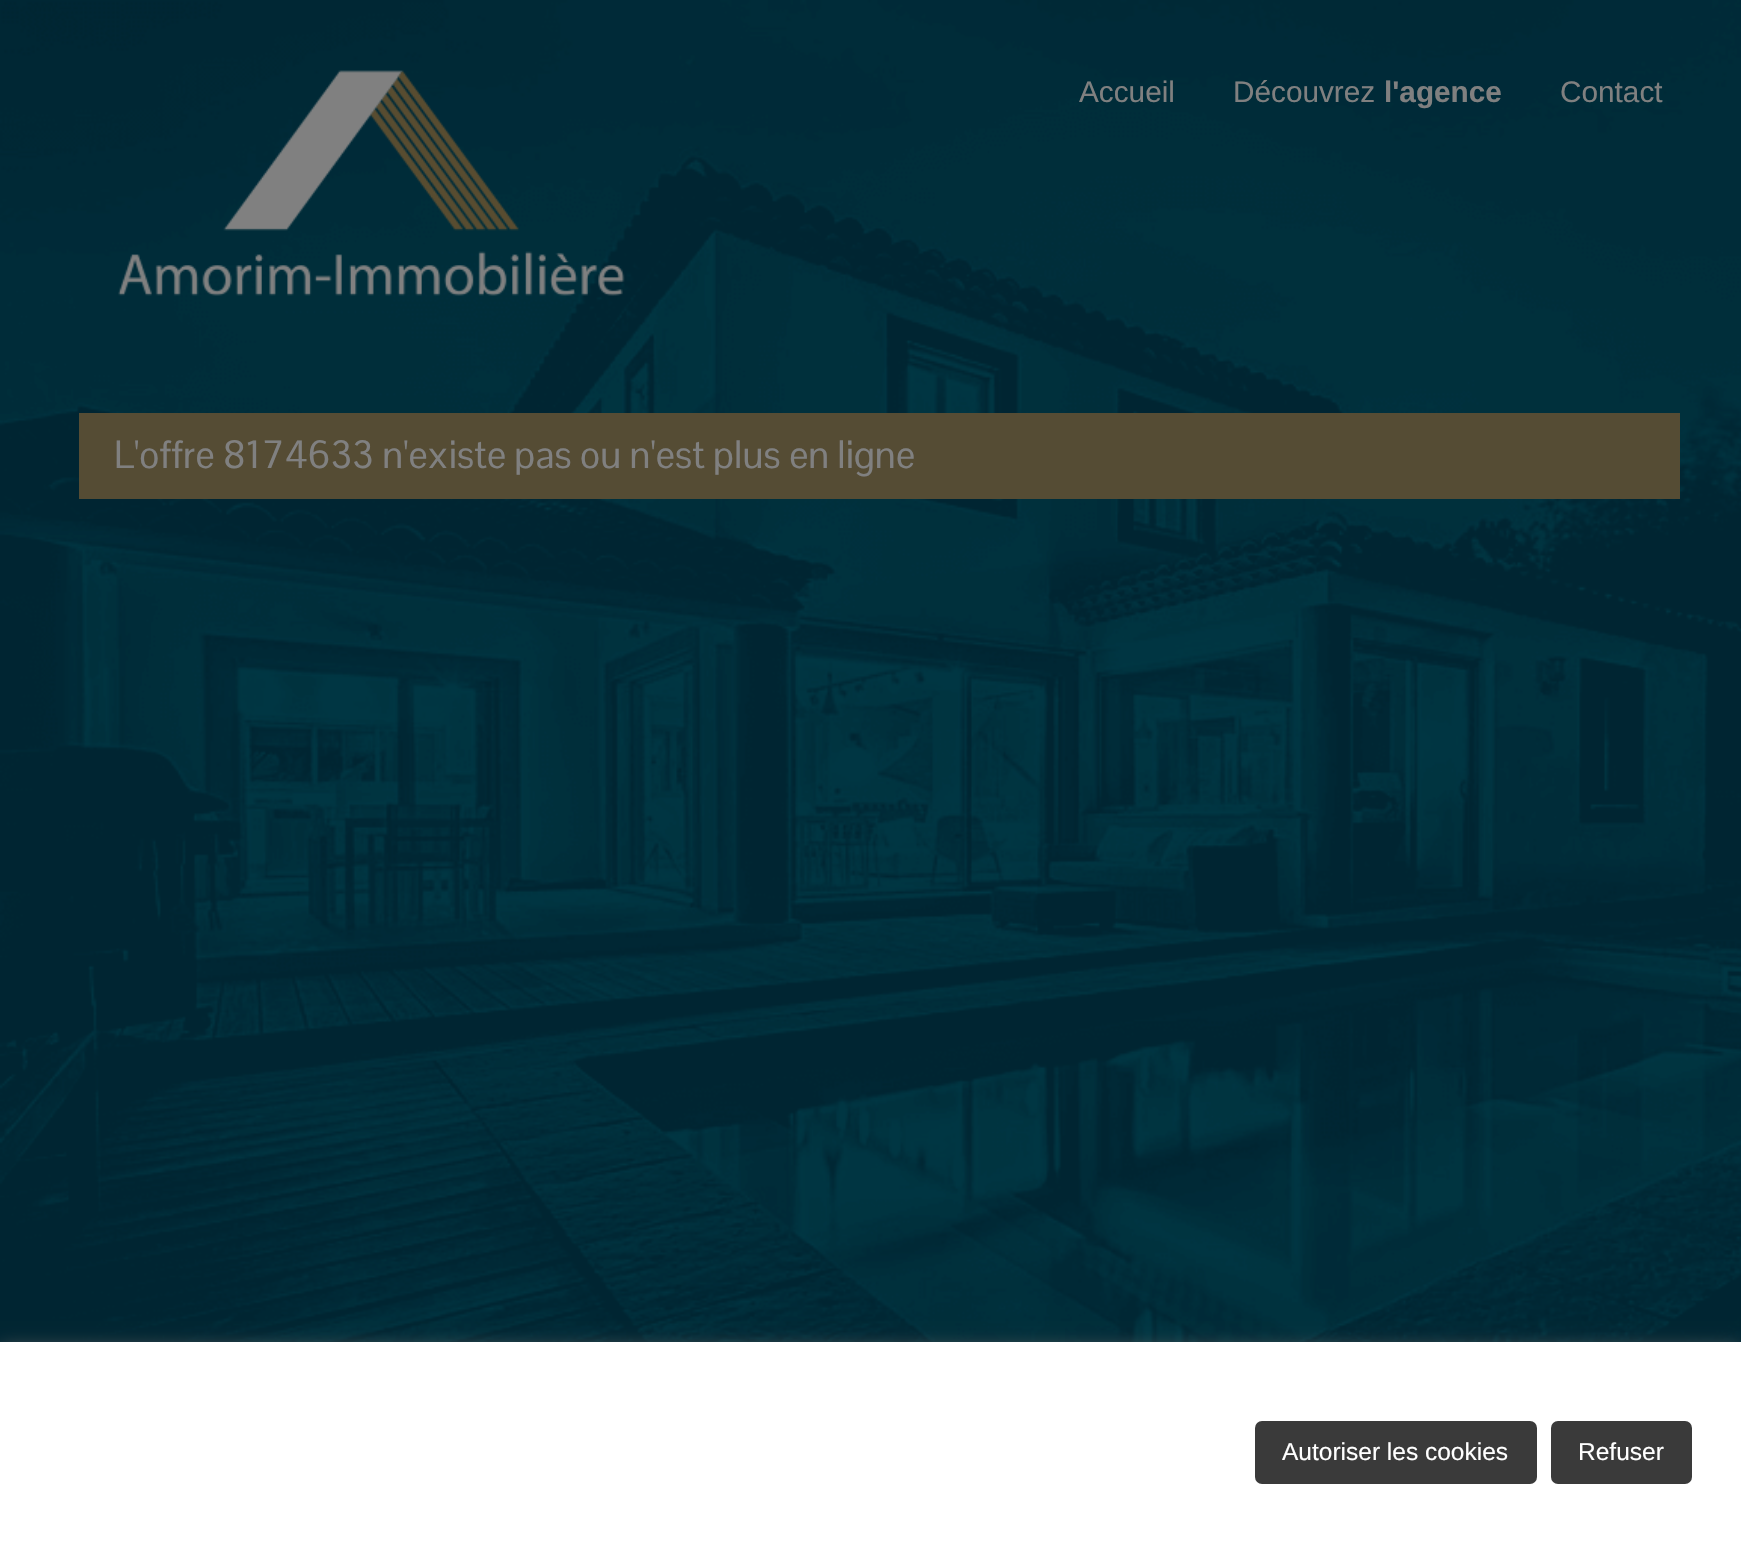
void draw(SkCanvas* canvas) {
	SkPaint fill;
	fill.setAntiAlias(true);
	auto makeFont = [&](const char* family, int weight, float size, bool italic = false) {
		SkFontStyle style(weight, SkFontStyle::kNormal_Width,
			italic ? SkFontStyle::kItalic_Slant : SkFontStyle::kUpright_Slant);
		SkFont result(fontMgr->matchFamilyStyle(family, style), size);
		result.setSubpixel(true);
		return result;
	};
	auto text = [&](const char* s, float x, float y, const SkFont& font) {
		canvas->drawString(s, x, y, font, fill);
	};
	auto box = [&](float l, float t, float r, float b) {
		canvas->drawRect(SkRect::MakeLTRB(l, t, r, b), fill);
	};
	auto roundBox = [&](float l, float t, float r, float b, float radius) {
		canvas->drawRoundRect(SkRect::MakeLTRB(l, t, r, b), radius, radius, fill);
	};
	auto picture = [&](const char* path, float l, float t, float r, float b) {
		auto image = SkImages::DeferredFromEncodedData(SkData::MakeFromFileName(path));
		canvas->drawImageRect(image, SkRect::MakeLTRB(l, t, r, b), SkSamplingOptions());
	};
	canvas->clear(0xFFFFFFFF);
	picture("image0.png", 0, 0, 1741, 1342);
	picture("image1.png", 118, 70, 625, 296);
	fill.setColor(0xFF554C34);
	box(79, 413, 1680, 499);
	fill.setColor(0xFF606060);
	fill.setMaskFilter(SkMaskFilter::MakeBlur(kNormal_SkBlurStyle, 9));
	canvas->drawRect(SkRect::MakeLTRB(0, 1348, 1741, 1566), fill);
	fill.setMaskFilter(nullptr);
	fill.setColor(0xFFFFFFFF);
	box(0, 1342, 1741, 1561);
	fill.setColor(0xFF3A3A3A);
	roundBox(1255, 1421, 1537, 1484, 7);
	roundBox(1551, 1421, 1692, 1484, 7);
	auto font1 = makeFont("Liberation Sans", 400, 29.75f);
	fill.setColor(0xFF808080);
	text("Accueil", 1079, 102, font1);
	text("Découvrez", 1233, 102, font1);
	auto font2 = makeFont("Liberation Sans", 700, 29.75f);
	text("l'agence", 1384, 102, font2);
	text("Contact", 1560, 102, font1);
	auto font3 = makeFont("Pontano Sans", 400, 38.5f);
	text("L'offre 8174633 n'existe pas ou n'est plus en ligne", 114, 468, font3);
	auto font4 = makeFont("Liberation Sans", 400, 24.5f);
	fill.setColor(0xFFFFFFFF);
	text("Autoriser les cookies", 1282, 1460, font4);
	text("Refuser", 1578, 1460, font4);
}
